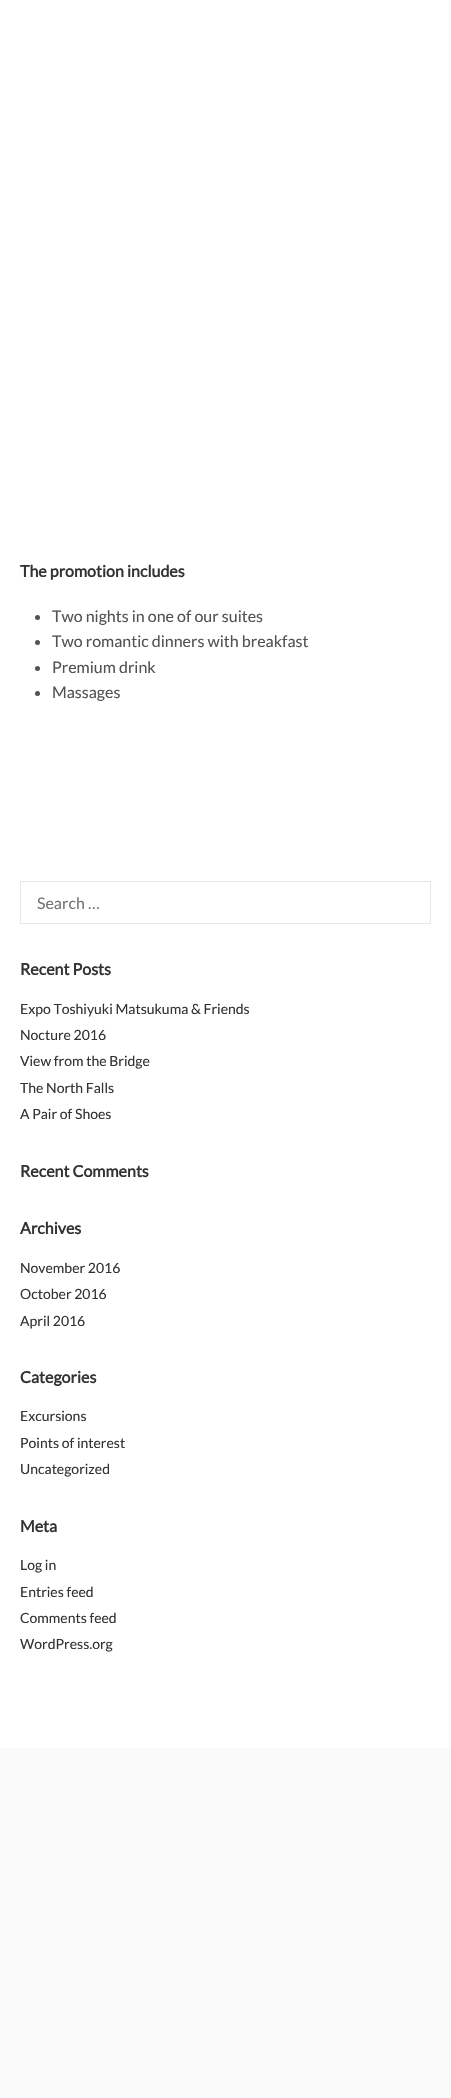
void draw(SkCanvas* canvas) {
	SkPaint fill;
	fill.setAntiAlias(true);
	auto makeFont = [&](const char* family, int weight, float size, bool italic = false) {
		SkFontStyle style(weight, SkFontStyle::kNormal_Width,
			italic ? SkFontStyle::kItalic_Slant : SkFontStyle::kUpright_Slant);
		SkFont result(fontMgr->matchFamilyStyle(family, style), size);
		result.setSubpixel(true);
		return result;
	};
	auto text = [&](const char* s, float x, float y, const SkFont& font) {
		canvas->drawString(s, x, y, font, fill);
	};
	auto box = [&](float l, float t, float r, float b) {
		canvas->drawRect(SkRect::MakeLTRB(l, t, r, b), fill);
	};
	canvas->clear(0xFFFFFFFF);
	fill.setColor(0xFF525252);
	canvas->drawCircle(37.5f, 617.5f, 2.5f, fill);
	canvas->drawCircle(37.5f, 642.5f, 2.5f, fill);
	canvas->drawCircle(37.5f, 668.5f, 2.5f, fill);
	canvas->drawCircle(37.5f, 693.5f, 2.5f, fill);
	fill.setStyle(SkPaint::kStroke_Style);
	fill.setStrokeWidth(1);
	fill.setColor(0xFFE7E7E7);
	canvas->drawRect(SkRect::MakeLTRB(20.5f, 881.5f, 430.5f, 923.5f), fill);
	fill.setStyle(SkPaint::kFill_Style);
	fill.setColor(0xFFFAFAFA);
	box(0, 1748, 451, 2098);
	auto font1 = makeFont("Lato", 700, 16);
	fill.setColor(0xFF333333);
	text("The promotion includes", 20, 577, font1);
	auto font2 = makeFont("Lato", 400, 16);
	fill.setColor(0xFF525252);
	text("Two nights in one of our suites", 52, 622, font2);
	text("Two romantic dinners with breakfast", 52, 647, font2);
	text("Premium drink", 52, 673, font2);
	text("Massages", 52, 698, font2);
	fill.setColor(0xFF757575);
	text("Search …", 37, 909, font2);
	fill.setColor(0xFF333333);
	text("Recent Posts", 20, 975, font1);
	auto font3 = makeFont("Lato", 400, 14);
	text("Expo Toshiyuki Matsukuma & Friends", 20, 1014, font3);
	text("Nocture 2016", 20, 1040, font3);
	text("View from the Bridge", 20, 1066, font3);
	text("The North Falls", 20, 1093, font3);
	text("A Pair of Shoes", 20, 1119, font3);
	text("Recent Comments", 20, 1177, font1);
	text("Archives", 20, 1234, font1);
	text("November 2016", 20, 1273, font3);
	text("October 2016", 20, 1299, font3);
	text("April 2016", 20, 1326, font3);
	text("Categories", 20, 1383, font1);
	text("Excursions", 20, 1421, font3);
	text("Points of interest", 20, 1448, font3);
	text("Uncategorized", 20, 1474, font3);
	text("Meta", 20, 1532, font1);
	text("Log in", 20, 1570, font3);
	text("Entries feed", 20, 1597, font3);
	text("Comments feed", 20, 1623, font3);
	text("WordPress.org", 20, 1649, font3);
}
